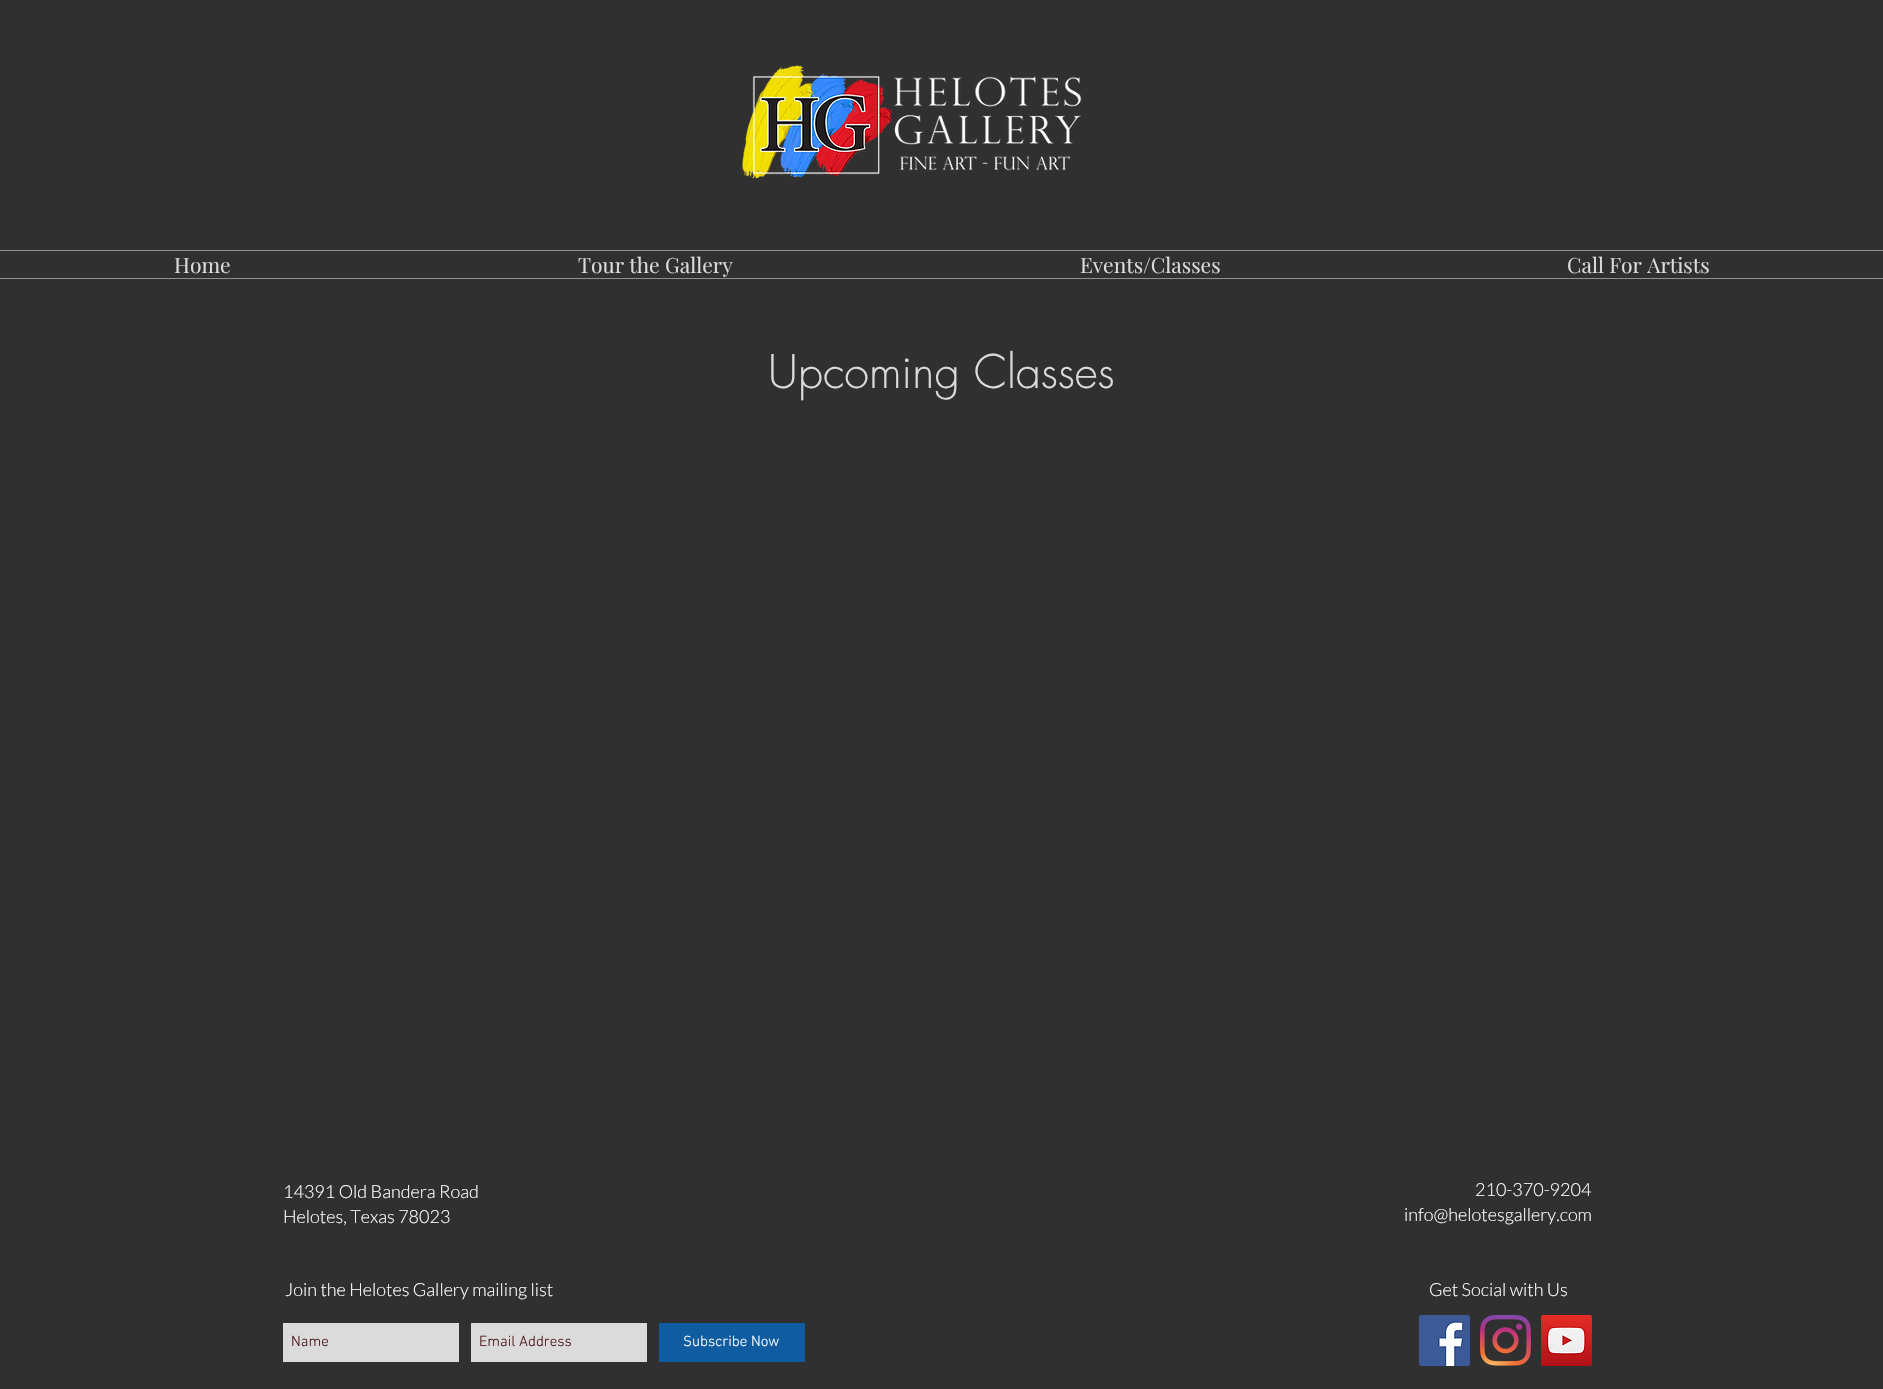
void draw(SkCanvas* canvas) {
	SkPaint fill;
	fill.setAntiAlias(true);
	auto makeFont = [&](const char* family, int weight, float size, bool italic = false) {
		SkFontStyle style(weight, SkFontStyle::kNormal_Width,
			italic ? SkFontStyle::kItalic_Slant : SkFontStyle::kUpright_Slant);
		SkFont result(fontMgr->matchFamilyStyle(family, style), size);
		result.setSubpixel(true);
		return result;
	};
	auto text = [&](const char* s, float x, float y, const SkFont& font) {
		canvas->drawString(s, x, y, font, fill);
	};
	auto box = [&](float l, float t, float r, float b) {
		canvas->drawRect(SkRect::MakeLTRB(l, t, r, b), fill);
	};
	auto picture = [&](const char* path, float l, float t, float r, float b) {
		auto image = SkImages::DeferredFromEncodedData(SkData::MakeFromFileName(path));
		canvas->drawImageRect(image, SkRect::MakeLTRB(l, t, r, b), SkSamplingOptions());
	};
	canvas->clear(0xFF303030);
	picture("image0.png", 742, 65, 1082, 179);
	fill.setColor(0xFF8F8F8F);
	box(0, 250, 1883, 251);
	box(0, 278, 1883, 279);
	fill.setColor(0xFFDBDBDB);
	box(283, 1323, 459, 1362);
	box(471, 1323, 647, 1362);
	fill.setColor(0xFF0F5CA0);
	box(659, 1323, 805, 1362);
	picture("image1.png", 1419, 1315, 1470, 1366);
	picture("image2.png", 1480, 1315, 1531, 1366);
	picture("image3.png", 1541, 1315, 1592, 1366);
	auto font1 = makeFont("Playfair Display", 400, 21);
	fill.setColor(0xFFDBDBDB);
	text("Home", 174, 273, font1);
	text("Tour the Gallery", 578, 273, font1);
	text("Events/Classes", 1080, 273, font1);
	text("Call For Artists", 1567, 273, font1);
	auto font2 = makeFont("futura", 300, 45);
	text("Upcoming Classes", 768, 388, font2);
	auto font3 = makeFont("Lato", 300, 18);
	fill.setColor(0xFFFFFFFF);
	text("14391 Old Bandera Road", 283, 1198, font3);
	text("Helotes, Texas 78023", 283, 1223, font3);
	text("210-370-9204", 1475, 1196, font3);
	text("info@helotesgallery.com", 1404, 1221, font3);
	text("Join the Helotes Gallery mailing list", 285, 1296, font3);
	auto font4 = makeFont("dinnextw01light", 300, 15);
	fill.setColor(0xFF4B1317);
	text("Name", 291, 1346, font4);
	text("Email Address", 479, 1346, font4);
	fill.setColor(0xFFFFFFFF);
	text("Subscribe Now", 683, 1346, font4);
	text("Get Social with Us", 1429, 1296, font3);
}
